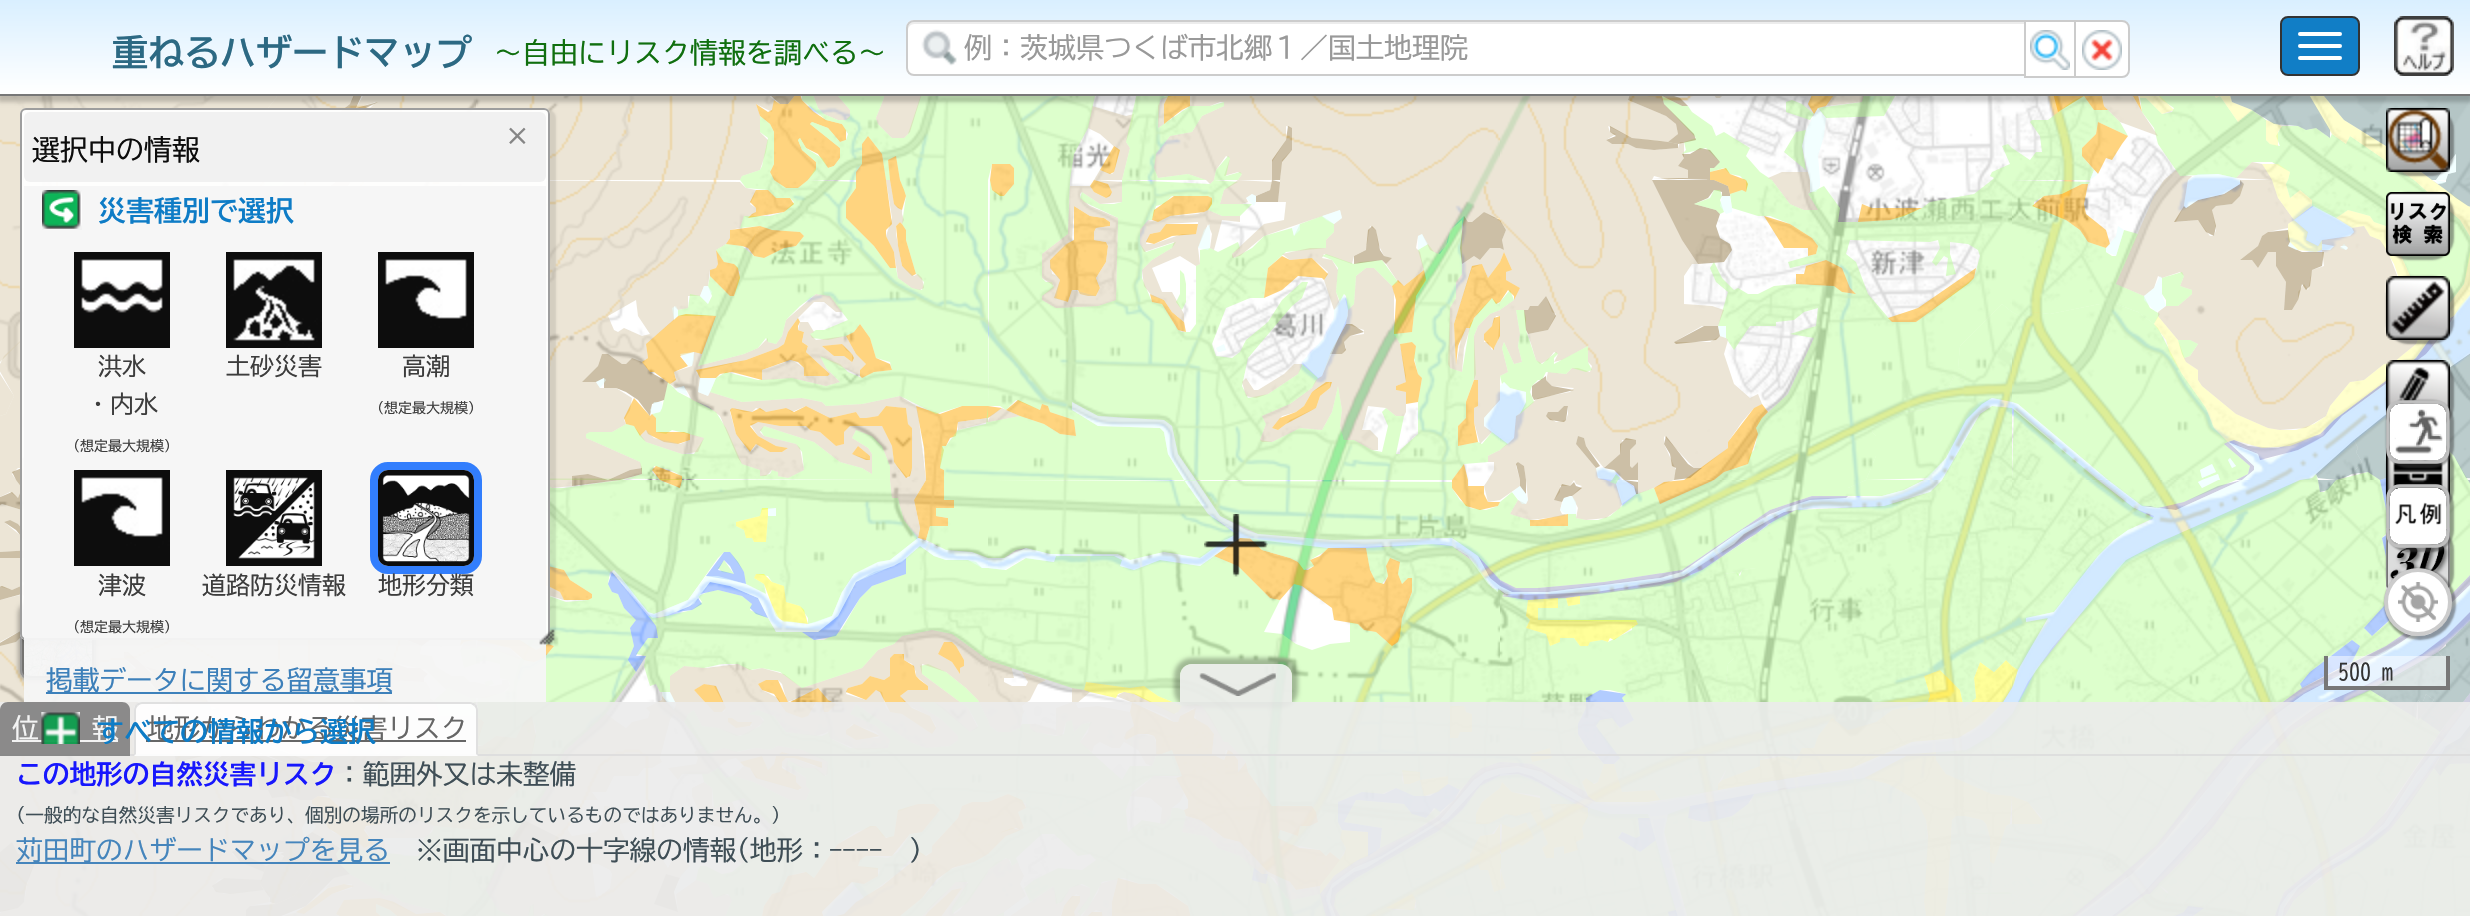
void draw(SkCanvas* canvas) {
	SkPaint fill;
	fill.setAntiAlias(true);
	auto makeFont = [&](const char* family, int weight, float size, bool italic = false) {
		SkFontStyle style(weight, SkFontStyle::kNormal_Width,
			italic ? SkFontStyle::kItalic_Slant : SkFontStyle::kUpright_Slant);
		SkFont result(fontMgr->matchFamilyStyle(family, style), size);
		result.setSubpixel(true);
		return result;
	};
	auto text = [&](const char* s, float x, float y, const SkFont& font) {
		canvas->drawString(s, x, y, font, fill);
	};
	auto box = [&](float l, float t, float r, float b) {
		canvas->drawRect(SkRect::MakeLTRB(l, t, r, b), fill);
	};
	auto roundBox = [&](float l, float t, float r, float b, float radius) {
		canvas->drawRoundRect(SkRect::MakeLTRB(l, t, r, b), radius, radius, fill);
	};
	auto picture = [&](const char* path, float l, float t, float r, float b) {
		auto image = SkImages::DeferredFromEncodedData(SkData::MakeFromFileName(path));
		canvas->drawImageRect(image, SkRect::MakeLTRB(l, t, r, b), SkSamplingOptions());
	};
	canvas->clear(0xFFFFFFFF);
	picture("image13.png", 0, 96, 476, 480);
	picture("image14.png", 476, 96, 988, 480);
	picture("image15.png", 988, 96, 1500, 480);
	picture("image16.png", 1500, 96, 2012, 480);
	picture("image17.png", 2012, 96, 2470, 480);
	picture("image18.png", 0, 480, 476, 916);
	picture("image19.png", 476, 480, 988, 916);
	picture("image20.png", 988, 480, 1500, 916);
	picture("image21.png", 1500, 480, 2012, 916);
	picture("image22.png", 2012, 480, 2470, 916);
	picture("image23.png", 0, 96, 2470, 916);
	fill.setColor(0x80404040);
	fill.setMaskFilter(SkMaskFilter::MakeBlur(kNormal_SkBlurStyle, 1));
	canvas->drawRoundRect(SkRect::MakeLTRB(2386, 108, 2454, 176), 22, 22, fill);
	fill.setMaskFilter(nullptr);
	picture("image29.png", 2386, 108, 2450, 172);
	fill.setColor(0x33000000);
	fill.setMaskFilter(SkMaskFilter::MakeBlur(kNormal_SkBlurStyle, 2));
	canvas->drawRect(SkRect::MakeLTRB(-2, 2, 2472, 102), fill);
	fill.setMaskFilter(nullptr);
	fill.setColor(0xFF777777);
	box(0, 94, 2470, 96);
	{
		const SkColor colors[] = {0xFFD9EFFF, 0xFFFFFFFF};
		const float stops[] = {0, 1};
		const SkPoint ends[] = {{1235, 0}, {1235, 94}};
		fill.setShader(SkGradientShader::MakeLinear(ends, colors, stops, 2, SkTileMode::kClamp));
		fill.setAlpha(255);
	}
	box(0, 0, 2470, 94);
	fill.setShader(nullptr);
	fill.setColor(0xFFFFFFFF);
	canvas->drawPath(SkPathBuilder().moveTo(914, 20).lineTo(2026, 20).lineTo(2026, 76).lineTo(914, 76).cubicTo(909.5f, 76, 906, 72.5f, 906, 68).lineTo(906, 28).cubicTo(906, 23.5f, 909.5f, 20, 914, 20).close().detach(), fill);
	picture("image0.png", 921, 29, 957, 66);
	fill.setColor(0xFFECECEC);
	canvas->drawPath(SkPathBuilder().moveTo(914, 24).lineTo(2024, 24).lineTo(2024, 22).lineTo(914, 22).cubicTo(911, 22, 908, 25, 908, 28).lineTo(908, 30).cubicTo(908, 27, 911, 24, 914, 24).close().detach(), fill);
	fill.setStyle(SkPaint::kStroke_Style);
	fill.setStrokeWidth(2);
	fill.setColor(0xFFCCCCCC);
	canvas->drawPath(SkPathBuilder().moveTo(914, 21).lineTo(2025, 21).lineTo(2025, 75).lineTo(914, 75).cubicTo(910, 75, 907, 72, 907, 68).lineTo(907, 28).cubicTo(907, 24, 910, 21, 914, 21).close().detach(), fill);
	fill.setStyle(SkPaint::kFill_Style);
	fill.setColor(0xFFFFFFFF);
	canvas->drawRect(SkRect::MakeLTRB(2025, 21, 2075, 77), fill);
	fill.setStyle(SkPaint::kStroke_Style);
	fill.setColor(0xFFCCCCCC);
	canvas->drawRect(SkRect::MakeLTRB(2025, 21, 2075, 77), fill);
	picture("image1.png", 2030, 30, 2070, 70);
	fill.setStyle(SkPaint::kFill_Style);
	fill.setColor(0xFFFFFFFF);
	canvas->drawPath(SkPathBuilder().moveTo(2075, 21).lineTo(2122, 21).cubicTo(2126, 21, 2129, 24, 2129, 28).lineTo(2129, 70).cubicTo(2129, 74, 2126, 77, 2122, 77).lineTo(2075, 77).close().detach(), fill);
	fill.setStyle(SkPaint::kStroke_Style);
	fill.setColor(0xFFCCCCCC);
	canvas->drawPath(SkPathBuilder().moveTo(2075, 21).lineTo(2122, 21).cubicTo(2126, 21, 2129, 24, 2129, 28).lineTo(2129, 70).cubicTo(2129, 74, 2126, 77, 2122, 77).lineTo(2075, 77).close().detach(), fill);
	picture("image2.png", 2082, 30, 2122, 70);
	fill.setStyle(SkPaint::kFill_Style);
	fill.setColor(0xFF117EC6);
	canvas->drawRoundRect(SkRect::MakeLTRB(2281, 17, 2359, 75), 7, 7, fill);
	fill.setStyle(SkPaint::kStroke_Style);
	fill.setColor(0xFF333333);
	canvas->drawRoundRect(SkRect::MakeLTRB(2281, 17, 2359, 75), 7, 7, fill);
	fill.setStyle(SkPaint::kFill_Style);
	fill.setColor(0xFFFFFFFF);
	roundBox(2298, 32, 2342, 36, 2);
	roundBox(2298, 44, 2342, 48, 2);
	roundBox(2298, 56, 2342, 60, 2);
	picture("image3.png", 2394, 16, 2454, 76);
	fill.setStyle(SkPaint::kStroke_Style);
	fill.setStrokeWidth(4);
	fill.setColor(0x33000000);
	canvas->drawRoundRect(SkRect::MakeLTRB(22, 458, 86, 582), 6, 6, fill);
	fill.setStyle(SkPaint::kFill_Style);
	fill.setColor(0xFFFFFFFF);
	canvas->drawPath(SkPathBuilder().moveTo(28, 460).lineTo(80, 460).cubicTo(82, 460, 84, 462, 84, 464).lineTo(84, 520).lineTo(24, 520).lineTo(24, 464).cubicTo(24, 462, 26, 460, 28, 460).close().detach(), fill);
	fill.setColor(0xFFCCCCCC);
	box(24, 518, 84, 520);
	fill.setColor(0xFFFFFFFF);
	canvas->drawPath(SkPathBuilder().moveTo(24, 520).lineTo(84, 520).lineTo(84, 576).cubicTo(84, 578, 82, 580, 80, 580).lineTo(28, 580).cubicTo(26, 580, 24, 578, 24, 576).close().detach(), fill);
	canvas->save();
	canvas->clipPath(SkPathBuilder(SkPathFillType::kEvenOdd).moveTo(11, 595).lineTo(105, 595).lineTo(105, 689).lineTo(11, 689).close().moveTo(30, 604).lineTo(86, 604).cubicTo(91.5f, 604, 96, 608.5f, 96, 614).lineTo(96, 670).cubicTo(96, 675.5f, 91.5f, 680, 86, 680).lineTo(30, 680).cubicTo(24.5f, 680, 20, 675.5f, 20, 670).lineTo(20, 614).cubicTo(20, 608.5f, 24.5f, 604, 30, 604).close().detach(), true);
	fill.setColor(0x45000000);
	fill.setMaskFilter(SkMaskFilter::MakeBlur(kNormal_SkBlurStyle, 2));
	canvas->drawRoundRect(SkRect::MakeLTRB(18, 602, 98, 682), 12, 12, fill);
	fill.setMaskFilter(nullptr);
	canvas->restore();
	fill.setColor(0xE6666666);
	roundBox(20, 604, 96, 680, 10);
	fill.setStyle(SkPaint::kStroke_Style);
	fill.setStrokeWidth(2);
	fill.setColor(0xE6999999);
	canvas->drawRoundRect(SkRect::MakeLTRB(21, 605, 95, 679), 9, 9, fill);
	picture("image25.png", 24, 608, 92, 676);
	canvas->save();
	canvas->clipPath(SkPathBuilder(SkPathFillType::kEvenOdd).moveTo(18, 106).lineTo(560, 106).lineTo(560, 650).lineTo(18, 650).close().moveTo(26, 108).lineTo(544, 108).cubicTo(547.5f, 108, 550, 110.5f, 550, 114).lineTo(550, 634).cubicTo(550, 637.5f, 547.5f, 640, 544, 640).lineTo(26, 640).cubicTo(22.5f, 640, 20, 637.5f, 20, 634).lineTo(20, 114).cubicTo(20, 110.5f, 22.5f, 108, 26, 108).close().detach(), true);
	fill.setStyle(SkPaint::kFill_Style);
	fill.setColor(0x1A000000);
	fill.setMaskFilter(SkMaskFilter::MakeBlur(kNormal_SkBlurStyle, 1));
	canvas->drawRoundRect(SkRect::MakeLTRB(22, 110, 556, 646), 8, 8, fill);
	fill.setMaskFilter(nullptr);
	canvas->restore();
	fill.setColor(0xF2FFFFFF);
	roundBox(20, 108, 550, 640, 6);
	fill.setStyle(SkPaint::kStroke_Style);
	fill.setColor(0xF2999999);
	canvas->drawRoundRect(SkRect::MakeLTRB(21, 109, 549, 639), 5, 5, fill);
	fill.setStyle(SkPaint::kFill_Style);
	fill.setColor(0xF2F0F0F0);
	roundBox(24, 112, 546, 182, 6);
	fill.setColor(0xF2F5F5F5);
	box(24, 186, 546, 702);
	picture("image4.png", 42, 190, 82, 230);
	picture("image5.png", 74, 252, 170, 348);
	picture("image6.png", 226, 252, 322, 348);
	picture("image7.png", 378, 252, 474, 348);
	picture("image8.png", 74, 470, 170, 566);
	picture("image9.png", 226, 470, 322, 566);
	fill.setStyle(SkPaint::kStroke_Style);
	fill.setStrokeWidth(8);
	fill.setColor(0xFF327EFD);
	canvas->drawRoundRect(SkRect::MakeLTRB(374, 466, 478, 570), 14, 14, fill);
	picture("image10.png", 378, 470, 474, 566);
	fill.setStyle(SkPaint::kFill_Style);
	fill.setColor(0xF2337AB7);
	box(46, 692, 392, 694);
	canvas->save();
	canvas->clipPath(SkPathBuilder(SkPathFillType::kEvenOdd).moveTo(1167, 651).lineTo(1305, 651).lineTo(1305, 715).lineTo(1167, 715).close().moveTo(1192, 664).lineTo(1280, 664).cubicTo(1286.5f, 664, 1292, 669.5f, 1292, 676).lineTo(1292, 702).lineTo(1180, 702).lineTo(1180, 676).cubicTo(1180, 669.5f, 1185.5f, 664, 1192, 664).close().detach(), true);
	fill.setColor(0x45000000);
	fill.setMaskFilter(SkMaskFilter::MakeBlur(kNormal_SkBlurStyle, 2));
	canvas->drawRoundRect(SkRect::MakeLTRB(1174, 658, 1298, 708), 18, 18, fill);
	fill.setMaskFilter(nullptr);
	canvas->restore();
	fill.setColor(0xE6EBEBEB);
	box(0, 702, 2470, 916);
	fill.setColor(0xE6DDDDDD);
	box(0, 754, 2470, 756);
	fill.setColor(0xE6808080);
	canvas->drawPath(SkPathBuilder().moveTo(8, 702).lineTo(122, 702).cubicTo(126.5f, 702, 130, 705.5f, 130, 710).lineTo(130, 756).lineTo(0, 756).lineTo(0, 710).cubicTo(0, 705.5f, 3.5f, 702, 8, 702).close().detach(), fill);
	fill.setColor(0xFFF3F3F3);
	box(12, 740, 118, 742);
	picture("image11.png", 41, 712, 80, 744);
	picture("image12.png", 539, 629, 555, 645);
	picture("image24.png", 1204, 514, 1268, 577);
	fill.setColor(0x80404040);
	fill.setMaskFilter(SkMaskFilter::MakeBlur(kNormal_SkBlurStyle, 1));
	canvas->drawRoundRect(SkRect::MakeLTRB(2386, 360, 2454, 428), 22, 22, fill);
	fill.setMaskFilter(nullptr);
	picture("image32.png", 2386, 360, 2450, 424);
	fill.setMaskFilter(SkMaskFilter::MakeBlur(kNormal_SkBlurStyle, 1));
	canvas->drawRoundRect(SkRect::MakeLTRB(2386, 444, 2454, 512), 22, 22, fill);
	fill.setMaskFilter(nullptr);
	picture("image33.png", 2386, 444, 2450, 508);
	fill.setMaskFilter(SkMaskFilter::MakeBlur(kNormal_SkBlurStyle, 1));
	canvas->drawRoundRect(SkRect::MakeLTRB(2386, 400, 2454, 468), 22, 22, fill);
	fill.setMaskFilter(nullptr);
	picture("image26.png", 2386, 400, 2450, 464);
	fill.setMaskFilter(SkMaskFilter::MakeBlur(kNormal_SkBlurStyle, 1));
	canvas->drawRoundRect(SkRect::MakeLTRB(2386, 528, 2454, 596), 22, 22, fill);
	fill.setMaskFilter(nullptr);
	picture("image34.png", 2386, 528, 2450, 591);
	fill.setMaskFilter(SkMaskFilter::MakeBlur(kNormal_SkBlurStyle, 1));
	canvas->drawRoundRect(SkRect::MakeLTRB(2386, 484, 2454, 552), 22, 22, fill);
	fill.setMaskFilter(nullptr);
	picture("image27.png", 2386, 484, 2450, 548);
	fill.setMaskFilter(SkMaskFilter::MakeBlur(kNormal_SkBlurStyle, 1));
	canvas->drawRoundRect(SkRect::MakeLTRB(2384, 568, 2456, 640), 36, 36, fill);
	fill.setMaskFilter(nullptr);
	fill.setColor(0xFFFFFFFF);
	canvas->drawCircle(2418, 602, 34, fill);
	fill.setStyle(SkPaint::kStroke_Style);
	fill.setStrokeWidth(4);
	fill.setColor(0x33000000);
	canvas->drawCircle(2418, 602, 32, fill);
	picture("image28.png", 2398, 582, 2438, 622);
	fill.setStyle(SkPaint::kFill_Style);
	fill.setColor(0x80FFFFFF);
	box(2328, 656, 2446, 686);
	fill.setColor(0xFF777777);
	box(2446, 656, 2450, 690);
	box(2324, 686, 2450, 690);
	box(2324, 656, 2328, 690);
	fill.setColor(0x80404040);
	fill.setMaskFilter(SkMaskFilter::MakeBlur(kNormal_SkBlurStyle, 1));
	canvas->drawRoundRect(SkRect::MakeLTRB(2386, 192, 2454, 260), 22, 22, fill);
	fill.setMaskFilter(nullptr);
	picture("image30.png", 2386, 192, 2450, 256);
	fill.setMaskFilter(SkMaskFilter::MakeBlur(kNormal_SkBlurStyle, 1));
	canvas->drawRoundRect(SkRect::MakeLTRB(2386, 276, 2454, 344), 22, 22, fill);
	fill.setMaskFilter(nullptr);
	picture("image31.png", 2386, 276, 2450, 340);
	fill.setColor(0xE6EBEBEB);
	canvas->drawPath(SkPathBuilder().moveTo(1192, 664).lineTo(1280, 664).cubicTo(1286.5f, 664, 1292, 669.5f, 1292, 676).lineTo(1292, 702).lineTo(1180, 702).lineTo(1180, 676).cubicTo(1180, 669.5f, 1185.5f, 664, 1192, 664).close().detach(), fill);
	picture("image35.png", 1199, 673, 1276, 696);
	fill.setColor(0xE6FFFFFF);
	canvas->drawPath(SkPathBuilder().moveTo(142, 702).lineTo(470, 702).cubicTo(474.5f, 702, 478, 705.5f, 478, 710).lineTo(478, 756).lineTo(134, 756).lineTo(134, 710).cubicTo(134, 705.5f, 137.5f, 702, 142, 702).close().detach(), fill);
	fill.setColor(0xE6DDDDDD);
	canvas->drawPath(SkPathBuilder().moveTo(142, 702).cubicTo(140, 702, 138, 703, 136, 704).lineTo(138, 706).cubicTo(139, 705, 140, 704, 142, 704).lineTo(471, 704).lineTo(474, 706).lineTo(476, 704).cubicTo(474, 703, 472, 702, 470, 702).close().detach(), fill);
	canvas->drawPath(SkPathBuilder().moveTo(478, 756).lineTo(478, 710).cubicTo(478, 708, 477, 706, 476, 704).lineTo(474, 706).cubicTo(475, 707, 476, 708, 476, 710).lineTo(476, 754).close().detach(), fill);
	canvas->drawPath(SkPathBuilder().moveTo(134, 756).lineTo(136, 754).lineTo(136, 710).cubicTo(136, 708, 137, 707, 138, 706).lineTo(136, 704).cubicTo(135, 706, 134, 708, 134, 710).close().detach(), fill);
	fill.setColor(0xFF666666);
	box(146, 740, 466, 742);
	fill.setColor(0xE6337AB7);
	box(16, 862, 390, 864);
	auto font1 = makeFont("BIZ UDGothic", 700, 36);
	fill.setColor(0xFF2C6983);
	text("重ねるハザードマップ", 112, 66, font1);
	auto font2 = makeFont("BIZ UDGothic", 400, 28);
	fill.setColor(0xFF106F0F);
	text("～自由にリスク情報を調べる～", 494, 63, font2);
	fill.setColor(0xFF999999);
	text("例：茨城県つくば市北郷１／国土地理院", 964, 58, font2);
	fill.setColor(0xFF0C0C0C);
	text("選択中の情報", 32, 160, font2);
	auto font3 = makeFont("BIZ UDGothic", 700, 26.7f);
	fill.setColor(0xFF868686);
	text("×", 504, 146, font3);
	auto font4 = makeFont("BIZ UDGothic", 700, 28);
	fill.setColor(0xFF0E7CC6);
	text("災害種別で選択", 98, 221, font4);
	auto font5 = makeFont("BIZ UDGothic", 400, 24);
	fill.setColor(0xFF3D3D3D);
	text("洪水", 98, 375, font5);
	text("・内水", 86, 413, font5);
	auto font6 = makeFont("BIZ UDGothic", 400, 14);
	text("(想定最大規模)", 73, 451, font6);
	text("土砂災害", 226, 375, font5);
	text("高潮", 402, 375, font5);
	text("(想定最大規模)", 377, 413, font6);
	text("津波", 98, 594, font5);
	text("(想定最大規模)", 73, 632, font6);
	text("道路防災情報", 202, 594, font5);
	text("地形分類", 378, 594, font5);
	auto font7 = makeFont("BIZ UDGothic", 400, 26.7f);
	fill.setColor(0xFF3D80BA);
	text("掲載データに関する留意事項", 46, 690, font7);
	auto font8 = makeFont("BIZ UDGothic", 400, 22);
	fill.setColor(0xFF333333);
	text("500 m", 2338, 680, font8);
	fill.setColor(0xFFF4F4F4);
	text("位", 12, 738, font7);
	text("報", 92, 738, font7);
	fill.setColor(0xFF666666);
	text("地形からわかる災害リスク", 147, 738, font7);
	canvas->save();
	canvas->clipPath(SkPathBuilder().moveTo(30, 182).lineTo(540, 182).cubicTo(543.5f, 182, 546, 184.5f, 546, 188).lineTo(546, 738).cubicTo(546, 741.5f, 543.5f, 744, 540, 744).lineTo(30, 744).cubicTo(26.5f, 744, 24, 741.5f, 24, 738).lineTo(24, 188).cubicTo(24, 184.5f, 26.5f, 182, 30, 182).close().detach(), true);
	fill.setColor(0xFF0E7CC6);
	text("すべての情報から選択", 96, 742, font4);
	canvas->restore();
	fill.setColor(0xFF1717FD);
	text("この地形の自然災害リスク", 16, 784, font3);
	fill.setColor(0xFF3F4E56);
	text("：範囲外又は未整備", 336, 784, font7);
	auto font9 = makeFont("BIZ UDGothic", 400, 18.65f);
	text("(一般的な自然災害リスクであり、個別の場所のリスクを示しているものではありません。)", 16, 822, font9);
	fill.setColor(0xFF4585BC);
	text("苅田町のハザードマップを見る", 16, 860, font7);
	fill.setColor(0xFF3F4E56);
	text("※画面中心の十字線の情報(地形：", 416, 860, font7);
	text("----", 829, 860, font7);
	text(")", 909, 860, font7);
}
